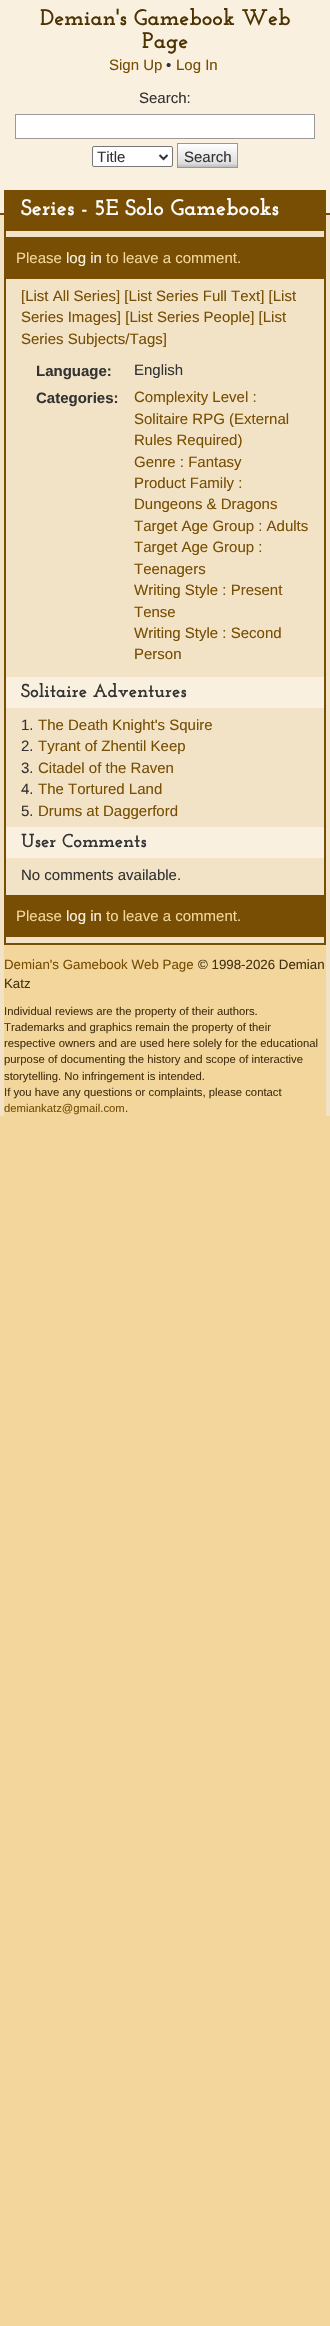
void draw(SkCanvas* canvas) {
	SkPaint fill;
	fill.setAntiAlias(true);
	auto makeFont = [&](const char* family, int weight, float size, bool italic = false) {
		SkFontStyle style(weight, SkFontStyle::kNormal_Width,
			italic ? SkFontStyle::kItalic_Slant : SkFontStyle::kUpright_Slant);
		SkFont result(fontMgr->matchFamilyStyle(family, style), size);
		result.setSubpixel(true);
		return result;
	};
	auto text = [&](const char* s, float x, float y, const SkFont& font) {
		canvas->drawString(s, x, y, font, fill);
	};
	auto box = [&](float l, float t, float r, float b) {
		canvas->drawRect(SkRect::MakeLTRB(l, t, r, b), fill);
	};
	canvas->clear(0xFFF3D69C);
	fill.setColor(0xFFF9F0E0);
	box(0, 0, 330, 213);
	fill.setColor(0xFF774E03);
	box(0, 213, 330, 215);
	fill.setColor(0xFFFFFFFF);
	canvas->drawRect(SkRect::MakeLTRB(15.5f, 114.5f, 314.5f, 138.5f), fill);
	fill.setStyle(SkPaint::kStroke_Style);
	fill.setStrokeWidth(1);
	fill.setColor(0xFF999999);
	canvas->drawRect(SkRect::MakeLTRB(15.5f, 114.5f, 314.5f, 138.5f), fill);
	fill.setStyle(SkPaint::kFill_Style);
	fill.setColor(0xFFFFFFFF);
	canvas->drawRoundRect(SkRect::MakeLTRB(92.5f, 146.5f, 172.5f, 166.5f), 1.5f, 1.5f, fill);
	fill.setStyle(SkPaint::kStroke_Style);
	fill.setColor(0xFF767676);
	canvas->drawRoundRect(SkRect::MakeLTRB(92.5f, 146.5f, 172.5f, 166.5f), 1.5f, 1.5f, fill);
	fill.setStrokeWidth(2);
	fill.setColor(0xFF333333);
	canvas->drawPath(SkPathBuilder().moveTo(159.5f, 155).lineTo(163.5f, 159).lineTo(167.5f, 155).detach(), fill);
	fill.setStyle(SkPaint::kFill_Style);
	{
		const SkColor colors[] = {0xFFFFFFFF, 0xFFDDDDDD, 0xFFBBBBBB};
		const float stops[] = {0, 0.85f, 1};
		const SkPoint ends[] = {{208, 144}, {208, 167}};
		fill.setShader(SkGradientShader::MakeLinear(ends, colors, stops, 3, SkTileMode::kClamp));
		fill.setAlpha(255);
	}
	box(178, 144, 237, 167);
	fill.setStyle(SkPaint::kStroke_Style);
	fill.setStrokeWidth(1);
	fill.setShader(nullptr);
	fill.setColor(0xFF999999);
	canvas->drawRect(SkRect::MakeLTRB(177.5f, 143.5f, 237.5f, 167.5f), fill);
	fill.setStyle(SkPaint::kFill_Style);
	fill.setColor(0xFFF3E3C6);
	box(0, 215, 330, 1116);
	fill.setColor(0xFF774E03);
	box(4, 190, 326, 231);
	box(324, 231, 326, 945);
	box(4, 943, 326, 945);
	box(4, 231, 6, 945);
	box(6, 237, 324, 279);
	fill.setColor(0xFFF9F0E0);
	box(6, 677, 324, 708);
	box(6, 827, 324, 858);
	fill.setColor(0xFF774E03);
	box(6, 895, 324, 937);
	fill.setColor(0xFFF3D69C);
	box(4, 945, 326, 1116);
	auto font1 = makeFont("Josefin Slab", 700, 22.5f);
	fill.setColor(0xFF4D3301);
	text("Demian's Gamebook Web", 40, 25, font1);
	text("Page", 142, 48, font1);
	auto font2 = makeFont("Liberation Sans", 400, 15);
	fill.setColor(0xFF774E03);
	text("Sign Up", 109, 70, font2);
	fill.setColor(0xFF333333);
	text("•", 166, 70, font2);
	fill.setColor(0xFF774E03);
	text("Log In", 176, 70, font2);
	fill.setColor(0xFF333333);
	text("Search:", 139, 103, font2);
	text("Title", 97, 162, font2);
	text("Search", 184, 162, font2);
	fill.setColor(0xFFFFFFFF);
	text("Series - 5E Solo Gamebooks", 21, 215, font1);
	fill.setColor(0xFFF3D69C);
	text("Please", 16, 263, font2);
	fill.setColor(0xFFF9F0E0);
	text("log in", 66, 263, font2);
	fill.setColor(0xFFF3D69C);
	text("to leave a comment.", 106, 263, font2);
	fill.setColor(0xFF774E03);
	text("[List All Series] [List Series Full Text] [List", 21, 301, font2);
	text("Series Images] [List Series People] [List", 21, 322, font2);
	text("Series Subjects/Tags]", 21, 344, font2);
	auto font3 = makeFont("Liberation Sans", 700, 15);
	fill.setColor(0xFF333333);
	text("Language:", 36, 376, font3);
	text("English", 134, 375, font2);
	text("Categories:", 36, 403, font3);
	fill.setColor(0xFF774E03);
	text("Complexity Level :", 134, 402, font2);
	text("Solitaire RPG (External", 134, 424, font2);
	text("Rules Required)", 134, 445, font2);
	text("Genre : Fantasy", 134, 467, font2);
	text("Product Family :", 134, 488, font2);
	text("Dungeons & Dragons", 134, 509, font2);
	text("Target Age Group : Adults", 134, 531, font2);
	text("Target Age Group :", 134, 552, font2);
	text("Teenagers", 134, 574, font2);
	text("Writing Style : Present", 134, 595, font2);
	text("Tense", 134, 617, font2);
	text("Writing Style : Second", 134, 638, font2);
	text("Person", 134, 659, font2);
	auto font4 = makeFont("Josefin Slab", 700, 18.75f);
	fill.setColor(0xFF333333);
	text("Solitaire Adventures", 21, 697, font4);
	text("1.", 21, 730, font2);
	fill.setColor(0xFF774E03);
	text("The Death Knight's Squire", 38, 730, font2);
	fill.setColor(0xFF333333);
	text("2.", 21, 751, font2);
	fill.setColor(0xFF774E03);
	text("Tyrant of Zhentil Keep", 38, 751, font2);
	fill.setColor(0xFF333333);
	text("3.", 21, 773, font2);
	fill.setColor(0xFF774E03);
	text("Citadel of the Raven", 38, 773, font2);
	fill.setColor(0xFF333333);
	text("4.", 21, 794, font2);
	fill.setColor(0xFF774E03);
	text("The Tortured Land", 38, 794, font2);
	fill.setColor(0xFF333333);
	text("5.", 21, 816, font2);
	fill.setColor(0xFF774E03);
	text("Drums at Daggerford", 38, 816, font2);
	fill.setColor(0xFF333333);
	text("User Comments", 21, 847, font4);
	text("No comments available.", 21, 880, font2);
	fill.setColor(0xFFF3D69C);
	text("Please", 16, 921, font2);
	fill.setColor(0xFFF9F0E0);
	text("log in", 66, 921, font2);
	fill.setColor(0xFFF3D69C);
	text("to leave a comment.", 106, 921, font2);
	auto font5 = makeFont("Liberation Sans", 400, 13.3f);
	fill.setColor(0xFF774E03);
	text("Demian's Gamebook Web Page", 4, 969, font5);
	fill.setColor(0xFF443311);
	text("© 1998-2026 Demian", 198, 969, font5);
	text("Katz", 4, 988, font5);
	auto font6 = makeFont("Liberation Sans", 400, 11.3f);
	text("Individual reviews are the property of their authors.", 4, 1015, font6);
	text("Trademarks and graphics remain the property of their", 4, 1031, font6);
	text("respective owners and are used here solely for the educational", 4, 1047, font6);
	text("purpose of documenting the history and scope of interactive", 4, 1063, font6);
	text("storytelling. No infringement is intended.", 4, 1080, font6);
	text("If you have any questions or complaints, please contact", 4, 1096, font6);
	fill.setColor(0xFF774E03);
	text("demiankatz@gmail.com", 4, 1112, font6);
	fill.setColor(0xFF443311);
	text(".", 125, 1112, font6);
}
